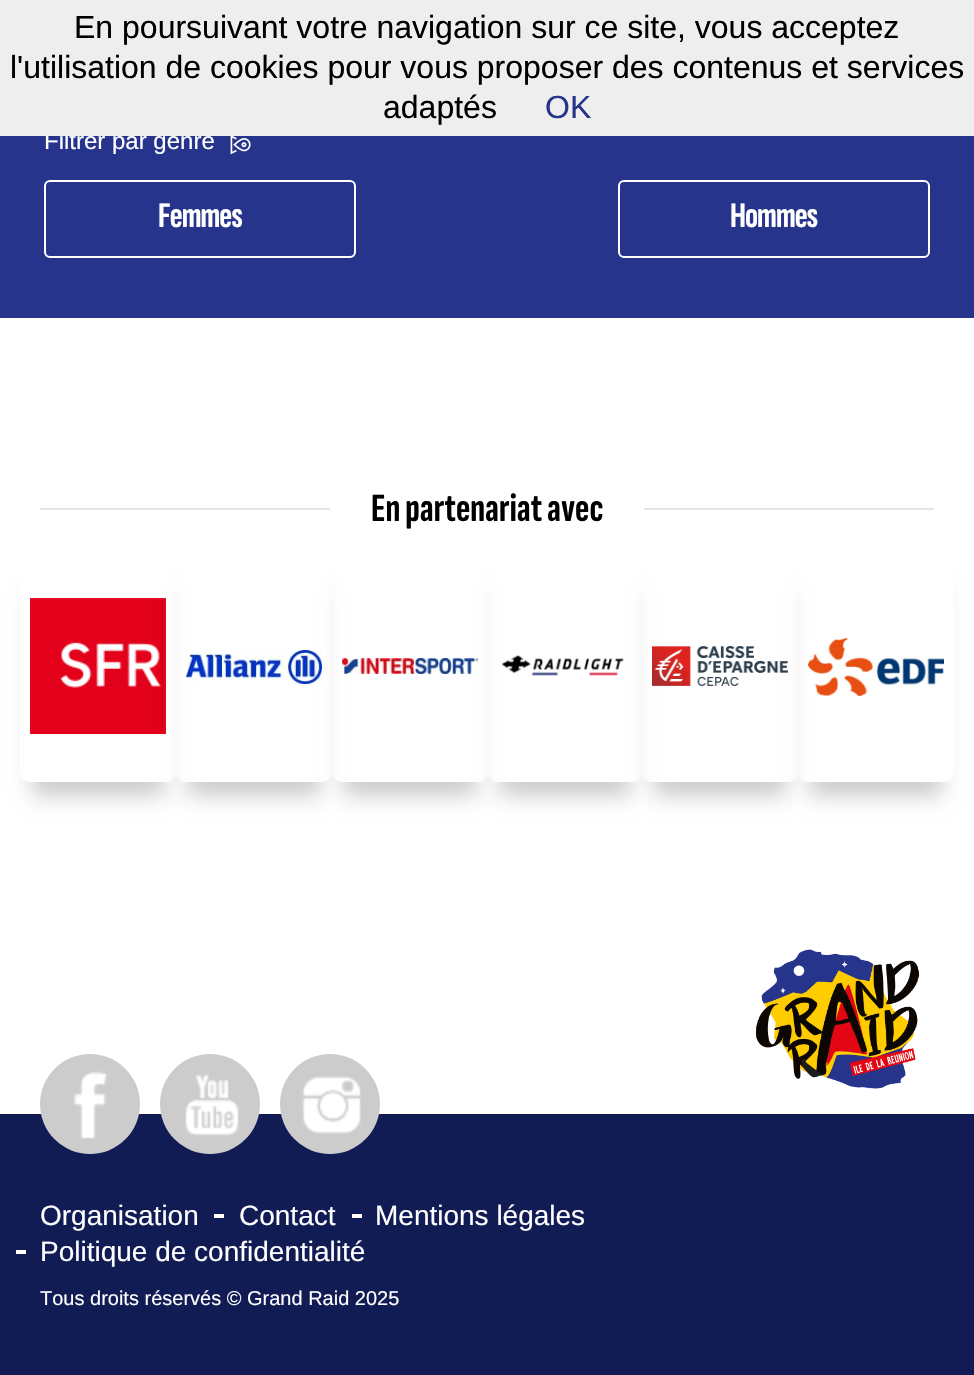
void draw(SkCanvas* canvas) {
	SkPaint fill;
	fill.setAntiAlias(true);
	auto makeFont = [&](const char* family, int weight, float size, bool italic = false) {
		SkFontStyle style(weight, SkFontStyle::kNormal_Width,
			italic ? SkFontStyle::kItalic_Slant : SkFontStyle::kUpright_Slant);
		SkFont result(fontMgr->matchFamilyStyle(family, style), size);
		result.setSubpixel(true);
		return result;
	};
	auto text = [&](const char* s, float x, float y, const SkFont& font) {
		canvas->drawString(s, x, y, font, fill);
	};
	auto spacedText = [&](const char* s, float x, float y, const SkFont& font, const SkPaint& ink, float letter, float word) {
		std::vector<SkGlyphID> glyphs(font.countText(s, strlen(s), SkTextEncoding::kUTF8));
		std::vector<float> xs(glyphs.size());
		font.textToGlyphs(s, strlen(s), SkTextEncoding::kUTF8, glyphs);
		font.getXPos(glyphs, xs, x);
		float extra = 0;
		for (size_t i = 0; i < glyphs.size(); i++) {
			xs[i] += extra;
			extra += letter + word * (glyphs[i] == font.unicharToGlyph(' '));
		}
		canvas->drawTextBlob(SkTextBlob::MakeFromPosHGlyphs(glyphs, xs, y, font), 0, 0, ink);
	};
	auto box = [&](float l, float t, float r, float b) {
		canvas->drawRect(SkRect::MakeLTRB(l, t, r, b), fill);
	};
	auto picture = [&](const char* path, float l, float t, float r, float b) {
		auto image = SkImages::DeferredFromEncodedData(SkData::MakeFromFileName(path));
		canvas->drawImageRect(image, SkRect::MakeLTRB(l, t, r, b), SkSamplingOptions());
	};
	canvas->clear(0xFFFFFFFF);
	fill.setColor(0xFF26348B);
	box(0, 136, 974, 318);
	picture("image0.png", 230, 136, 251, 155);
	fill.setStyle(SkPaint::kStroke_Style);
	fill.setStrokeWidth(2);
	fill.setColor(0xFFFFFFFF);
	canvas->drawRoundRect(SkRect::MakeLTRB(45, 181, 355, 257), 5, 5, fill);
	canvas->drawRoundRect(SkRect::MakeLTRB(619, 181, 929, 257), 5, 5, fill);
	fill.setStyle(SkPaint::kFill_Style);
	fill.setColor(0xFFE5E5E5);
	box(40, 508, 934, 510);
	fill.setColor(0xFFFFFFFF);
	box(330, 508, 644, 510);
	canvas->save();
	canvas->clipPath(SkPathBuilder(SkPathFillType::kEvenOdd).moveTo(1, 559).lineTo(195, 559).lineTo(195, 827).lineTo(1, 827).close().moveTo(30, 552).lineTo(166, 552).cubicTo(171.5f, 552, 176, 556.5f, 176, 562).lineTo(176, 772).cubicTo(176, 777.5f, 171.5f, 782, 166, 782).lineTo(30, 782).cubicTo(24.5f, 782, 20, 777.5f, 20, 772).lineTo(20, 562).cubicTo(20, 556.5f, 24.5f, 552, 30, 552).close().detach(), true);
	fill.setColor(0x33000000);
	fill.setMaskFilter(SkMaskFilter::MakeBlur(kNormal_SkBlurStyle, 10));
	canvas->drawRect(SkRect::MakeLTRB(32, 590, 164, 796), fill);
	fill.setMaskFilter(nullptr);
	canvas->restore();
	picture("image1.png", 30, 598, 166, 734);
	canvas->save();
	canvas->clipPath(SkPathBuilder(SkPathFillType::kEvenOdd).moveTo(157, 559).lineTo(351, 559).lineTo(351, 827).lineTo(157, 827).close().moveTo(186, 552).lineTo(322, 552).cubicTo(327.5f, 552, 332, 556.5f, 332, 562).lineTo(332, 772).cubicTo(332, 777.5f, 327.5f, 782, 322, 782).lineTo(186, 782).cubicTo(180.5f, 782, 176, 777.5f, 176, 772).lineTo(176, 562).cubicTo(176, 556.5f, 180.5f, 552, 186, 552).close().detach(), true);
	fill.setMaskFilter(SkMaskFilter::MakeBlur(kNormal_SkBlurStyle, 10));
	canvas->drawRect(SkRect::MakeLTRB(188, 590, 320, 796), fill);
	fill.setMaskFilter(nullptr);
	canvas->restore();
	picture("image2.png", 186, 650, 322, 684);
	canvas->save();
	canvas->clipPath(SkPathBuilder(SkPathFillType::kEvenOdd).moveTo(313, 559).lineTo(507, 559).lineTo(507, 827).lineTo(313, 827).close().moveTo(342, 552).lineTo(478, 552).cubicTo(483.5f, 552, 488, 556.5f, 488, 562).lineTo(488, 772).cubicTo(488, 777.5f, 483.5f, 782, 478, 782).lineTo(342, 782).cubicTo(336.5f, 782, 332, 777.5f, 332, 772).lineTo(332, 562).cubicTo(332, 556.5f, 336.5f, 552, 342, 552).close().detach(), true);
	fill.setMaskFilter(SkMaskFilter::MakeBlur(kNormal_SkBlurStyle, 10));
	canvas->drawRect(SkRect::MakeLTRB(344, 590, 476, 796), fill);
	fill.setMaskFilter(nullptr);
	canvas->restore();
	picture("image3.png", 342, 658, 478, 674);
	canvas->save();
	canvas->clipPath(SkPathBuilder(SkPathFillType::kEvenOdd).moveTo(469, 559).lineTo(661, 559).lineTo(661, 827).lineTo(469, 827).close().moveTo(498, 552).lineTo(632, 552).cubicTo(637.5f, 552, 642, 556.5f, 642, 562).lineTo(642, 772).cubicTo(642, 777.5f, 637.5f, 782, 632, 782).lineTo(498, 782).cubicTo(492.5f, 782, 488, 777.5f, 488, 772).lineTo(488, 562).cubicTo(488, 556.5f, 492.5f, 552, 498, 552).close().detach(), true);
	fill.setMaskFilter(SkMaskFilter::MakeBlur(kNormal_SkBlurStyle, 10));
	canvas->drawRect(SkRect::MakeLTRB(500, 590, 630, 796), fill);
	fill.setMaskFilter(nullptr);
	canvas->restore();
	picture("image4.png", 501, 655, 624, 676);
	canvas->save();
	canvas->clipPath(SkPathBuilder(SkPathFillType::kEvenOdd).moveTo(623, 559).lineTo(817, 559).lineTo(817, 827).lineTo(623, 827).close().moveTo(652, 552).lineTo(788, 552).cubicTo(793.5f, 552, 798, 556.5f, 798, 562).lineTo(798, 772).cubicTo(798, 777.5f, 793.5f, 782, 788, 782).lineTo(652, 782).cubicTo(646.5f, 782, 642, 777.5f, 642, 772).lineTo(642, 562).cubicTo(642, 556.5f, 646.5f, 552, 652, 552).close().detach(), true);
	fill.setMaskFilter(SkMaskFilter::MakeBlur(kNormal_SkBlurStyle, 10));
	canvas->drawRect(SkRect::MakeLTRB(654, 590, 786, 796), fill);
	fill.setMaskFilter(nullptr);
	canvas->restore();
	picture("image5.png", 652, 646, 788, 686);
	canvas->save();
	canvas->clipPath(SkPathBuilder(SkPathFillType::kEvenOdd).moveTo(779, 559).lineTo(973, 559).lineTo(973, 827).lineTo(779, 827).close().moveTo(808, 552).lineTo(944, 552).cubicTo(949.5f, 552, 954, 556.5f, 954, 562).lineTo(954, 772).cubicTo(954, 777.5f, 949.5f, 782, 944, 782).lineTo(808, 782).cubicTo(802.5f, 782, 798, 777.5f, 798, 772).lineTo(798, 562).cubicTo(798, 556.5f, 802.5f, 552, 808, 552).close().detach(), true);
	fill.setMaskFilter(SkMaskFilter::MakeBlur(kNormal_SkBlurStyle, 10));
	canvas->drawRect(SkRect::MakeLTRB(810, 590, 942, 796), fill);
	fill.setMaskFilter(nullptr);
	canvas->restore();
	picture("image6.png", 808, 638, 944, 696);
	fill.setColor(0xFF111B54);
	box(0, 1114, 974, 1375);
	fill.setColor(0xFFCCCCCC);
	canvas->drawCircle(90, 1104, 50, fill);
	picture("image7.png", 73, 1071, 107, 1139);
	canvas->drawCircle(210, 1104, 50, fill);
	picture("image8.png", 185, 1074, 239, 1136);
	canvas->drawCircle(330, 1104, 50, fill);
	picture("image9.png", 302, 1076, 361, 1134);
	fill.setColor(0xFFFFFFFF);
	box(214, 1214, 224, 1218);
	box(352, 1214, 362, 1218);
	box(16, 1250, 26, 1254);
	picture("image10.png", 755, 949, 920, 1089);
	auto font1 = makeFont("Liberation Sans", 400, 24);
	text("Filtrer par genre", 44, 149, font1);
	fill.setColor(0xFFEEEEEE);
	box(0, 0, 974, 136);
	auto font2 = makeFont("Liberation Sans", 400, 32);
	fill.setColor(0xFF26348B);
	text("OK", 545, 118, font2);
	fill.setColor(0xFF000000);
	text("adaptés", 383, 118, font2);
	text("l'utilisation de cookies pour vous proposer des contenus et services", 10, 78, font2);
	text("En poursuivant votre navigation sur ce site, vous acceptez", 74, 38, font2);
	auto font3 = makeFont("Sofia Sans Extra Condensed", 700, 36);
	fill.setColor(0xFFFFFFFF);
	spacedText("Femmes", 158, 227, font3, fill, -1, 0);
	spacedText("Hommes", 730, 227, font3, fill, -1, 0);
	auto font4 = makeFont("Sofia Sans Extra Condensed", 700, 40);
	fill.setColor(0xFF000000);
	text("En partenariat avec", 371, 521, font4);
	auto font5 = makeFont("Liberation Sans", 400, 28);
	fill.setColor(0xFFFFFFFF);
	text("Organisation", 40, 1225, font5);
	text("Contact", 239, 1225, font5);
	text("Mentions légales", 375, 1225, font5);
	text("Politique de confidentialité", 40, 1261, font5);
	auto font6 = makeFont("Liberation Sans", 400, 20);
	text("Tous droits réservés © Grand Raid 2025", 40, 1305, font6);
}
